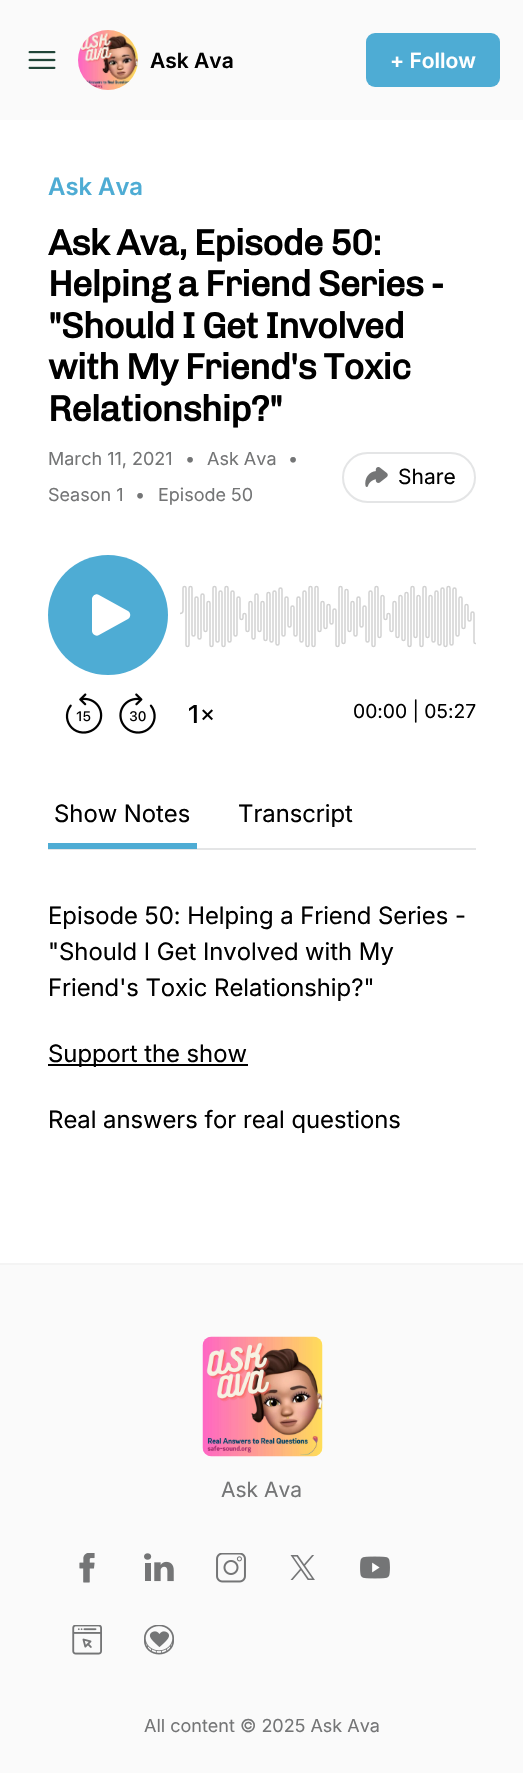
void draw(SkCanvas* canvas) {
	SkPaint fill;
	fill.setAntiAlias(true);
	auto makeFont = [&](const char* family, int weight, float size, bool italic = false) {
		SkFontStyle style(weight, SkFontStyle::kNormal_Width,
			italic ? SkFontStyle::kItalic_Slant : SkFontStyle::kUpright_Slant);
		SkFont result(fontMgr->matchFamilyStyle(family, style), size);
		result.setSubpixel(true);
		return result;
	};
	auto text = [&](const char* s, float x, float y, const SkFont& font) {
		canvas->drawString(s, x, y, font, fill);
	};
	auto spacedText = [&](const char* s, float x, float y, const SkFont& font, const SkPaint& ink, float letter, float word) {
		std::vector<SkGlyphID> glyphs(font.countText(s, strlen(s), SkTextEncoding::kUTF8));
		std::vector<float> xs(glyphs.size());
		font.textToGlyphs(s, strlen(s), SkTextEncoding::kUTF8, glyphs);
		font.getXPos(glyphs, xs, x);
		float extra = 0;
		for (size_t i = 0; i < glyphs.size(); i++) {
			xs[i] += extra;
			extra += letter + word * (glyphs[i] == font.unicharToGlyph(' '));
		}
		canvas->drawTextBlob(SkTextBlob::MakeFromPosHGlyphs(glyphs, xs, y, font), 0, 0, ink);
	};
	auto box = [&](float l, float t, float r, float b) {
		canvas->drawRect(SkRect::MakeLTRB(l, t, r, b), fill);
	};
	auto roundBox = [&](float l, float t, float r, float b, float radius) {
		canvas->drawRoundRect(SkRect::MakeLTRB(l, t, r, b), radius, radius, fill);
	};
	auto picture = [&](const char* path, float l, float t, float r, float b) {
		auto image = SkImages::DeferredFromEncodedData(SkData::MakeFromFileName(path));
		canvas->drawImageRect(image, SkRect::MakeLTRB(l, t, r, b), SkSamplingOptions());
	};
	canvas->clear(0xFFFFFFFF);
	fill.setColor(0xFFFAFAFA);
	box(0, 0, 523, 120);
	picture("image0.png", 28, 51, 56, 69);
	picture("image1.png", 78, 30, 138, 90);
	fill.setColor(0xFF4EACD4);
	roundBox(366, 33, 500, 87, 9);
	fill.setStyle(SkPaint::kStroke_Style);
	fill.setStrokeWidth(2);
	fill.setColor(0xFFE4E5E6);
	canvas->drawRoundRect(SkRect::MakeLTRB(343, 453, 475, 502), 24.5f, 24.5f, fill);
	picture("image2.png", 365, 467, 388, 487);
	picture("image3.png", 65, 693, 103, 734);
	picture("image4.png", 119, 693, 156, 734);
	picture("image5.png", 189, 705, 213, 723);
	fill.setStyle(SkPaint::kFill_Style);
	fill.setColor(0xFF4EACD4);
	canvas->drawCircle(108, 615, 60, fill);
	fill.setColor(0xFFFFFFFF);
	canvas->drawPath(SkPathBuilder(SkPathFillType::kEvenOdd).moveTo(92, 599).cubicTo(92, 596, 96, 593, 99, 595).lineTo(128, 611).cubicTo(131, 613, 131, 617, 128, 619).lineTo(99, 635).cubicTo(96, 637, 92, 634, 92, 631).close().detach(), fill);
	picture("image6.png", 180, 585, 476, 648);
	fill.setColor(0xFFE4E5E6);
	box(48, 848, 476, 850);
	fill.setColor(0xFF4EACD4);
	box(48, 843, 197, 849);
	fill.setColor(0xFF000000);
	box(48, 1064, 248, 1066);
	fill.setColor(0xFFFAFAFA);
	box(0, 1265, 523, 1773);
	fill.setColor(0xFFF4F4F4);
	box(0, 1263, 523, 1265);
	picture("image7.png", 202, 1336, 323, 1457);
	picture("image8.png", 79, 1553, 95, 1583);
	picture("image9.png", 144, 1553, 174, 1582);
	picture("image10.png", 216, 1553, 246, 1583);
	picture("image11.png", 290, 1555, 315, 1580);
	picture("image12.png", 360, 1556, 390, 1579);
	picture("image13.png", 72, 1625, 102, 1655);
	picture("image14.png", 144, 1625, 174, 1655);
	auto font1 = makeFont("Inter", 600, 21);
	fill.setColor(0xFF000000);
	text("Ask Ava", 150, 68, font1);
	fill.setColor(0xFFFFFFFF);
	text("+ Follow", 390, 68, font1);
	auto font2 = makeFont("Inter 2", 600, 24);
	fill.setColor(0xFF4EACD4);
	text("Ask Ava", 48, 195, font2);
	auto font3 = makeFont("Chivo", 700, 36);
	fill.setColor(0xFF000000);
	spacedText("Ask Ava, Episode 50:", 48, 255, font3, fill, -0.9f, 0);
	spacedText("Helping a Friend Series -", 48, 296, font3, fill, -0.9f, 0);
	spacedText("\"Should I Get Involved", 48, 338, font3, fill, -0.9f, 0);
	spacedText("with My Friend's Toxic", 48, 379, font3, fill, -0.9f, 0);
	spacedText("Relationship?\"", 48, 421, font3, fill, -0.9f, 0);
	auto font4 = makeFont("Inter", 400, 18);
	fill.setColor(0xFF747576);
	text("March 11, 2021", 48, 465, font4);
	text("•", 185, 465, font4);
	text("Ask Ava", 207, 465, font4);
	text("•", 288, 465, font4);
	text("Season 1", 48, 501, font4);
	text("•", 135, 501, font4);
	text("Episode 50", 158, 501, font4);
	auto font5 = makeFont("Inter", 400, 21);
	fill.setColor(0xFF000000);
	text("Share", 398, 484, font5);
	auto font6 = makeFont("Inter", 400, 19.25f);
	text("00:00 | 05:27", 353, 718, font6);
	auto font7 = makeFont("Inter 2", 400, 24);
	text("Show Notes", 54, 822, font7);
	text("Transcript", 238, 822, font7);
	text("Episode 50: Helping a Friend Series -", 48, 924, font7);
	text("\"Should I Get Involved with My", 48, 960, font7);
	text("Friend's Toxic Relationship?\"", 48, 996, font7);
	text("Support the show", 48, 1062, font7);
	text("Real answers for real questions", 48, 1128, font7);
	fill.setColor(0xFF747576);
	text("Ask Ava", 221, 1497, font5);
	text("All content © 2025 Ask Ava", 144, 1732, font4);
}
